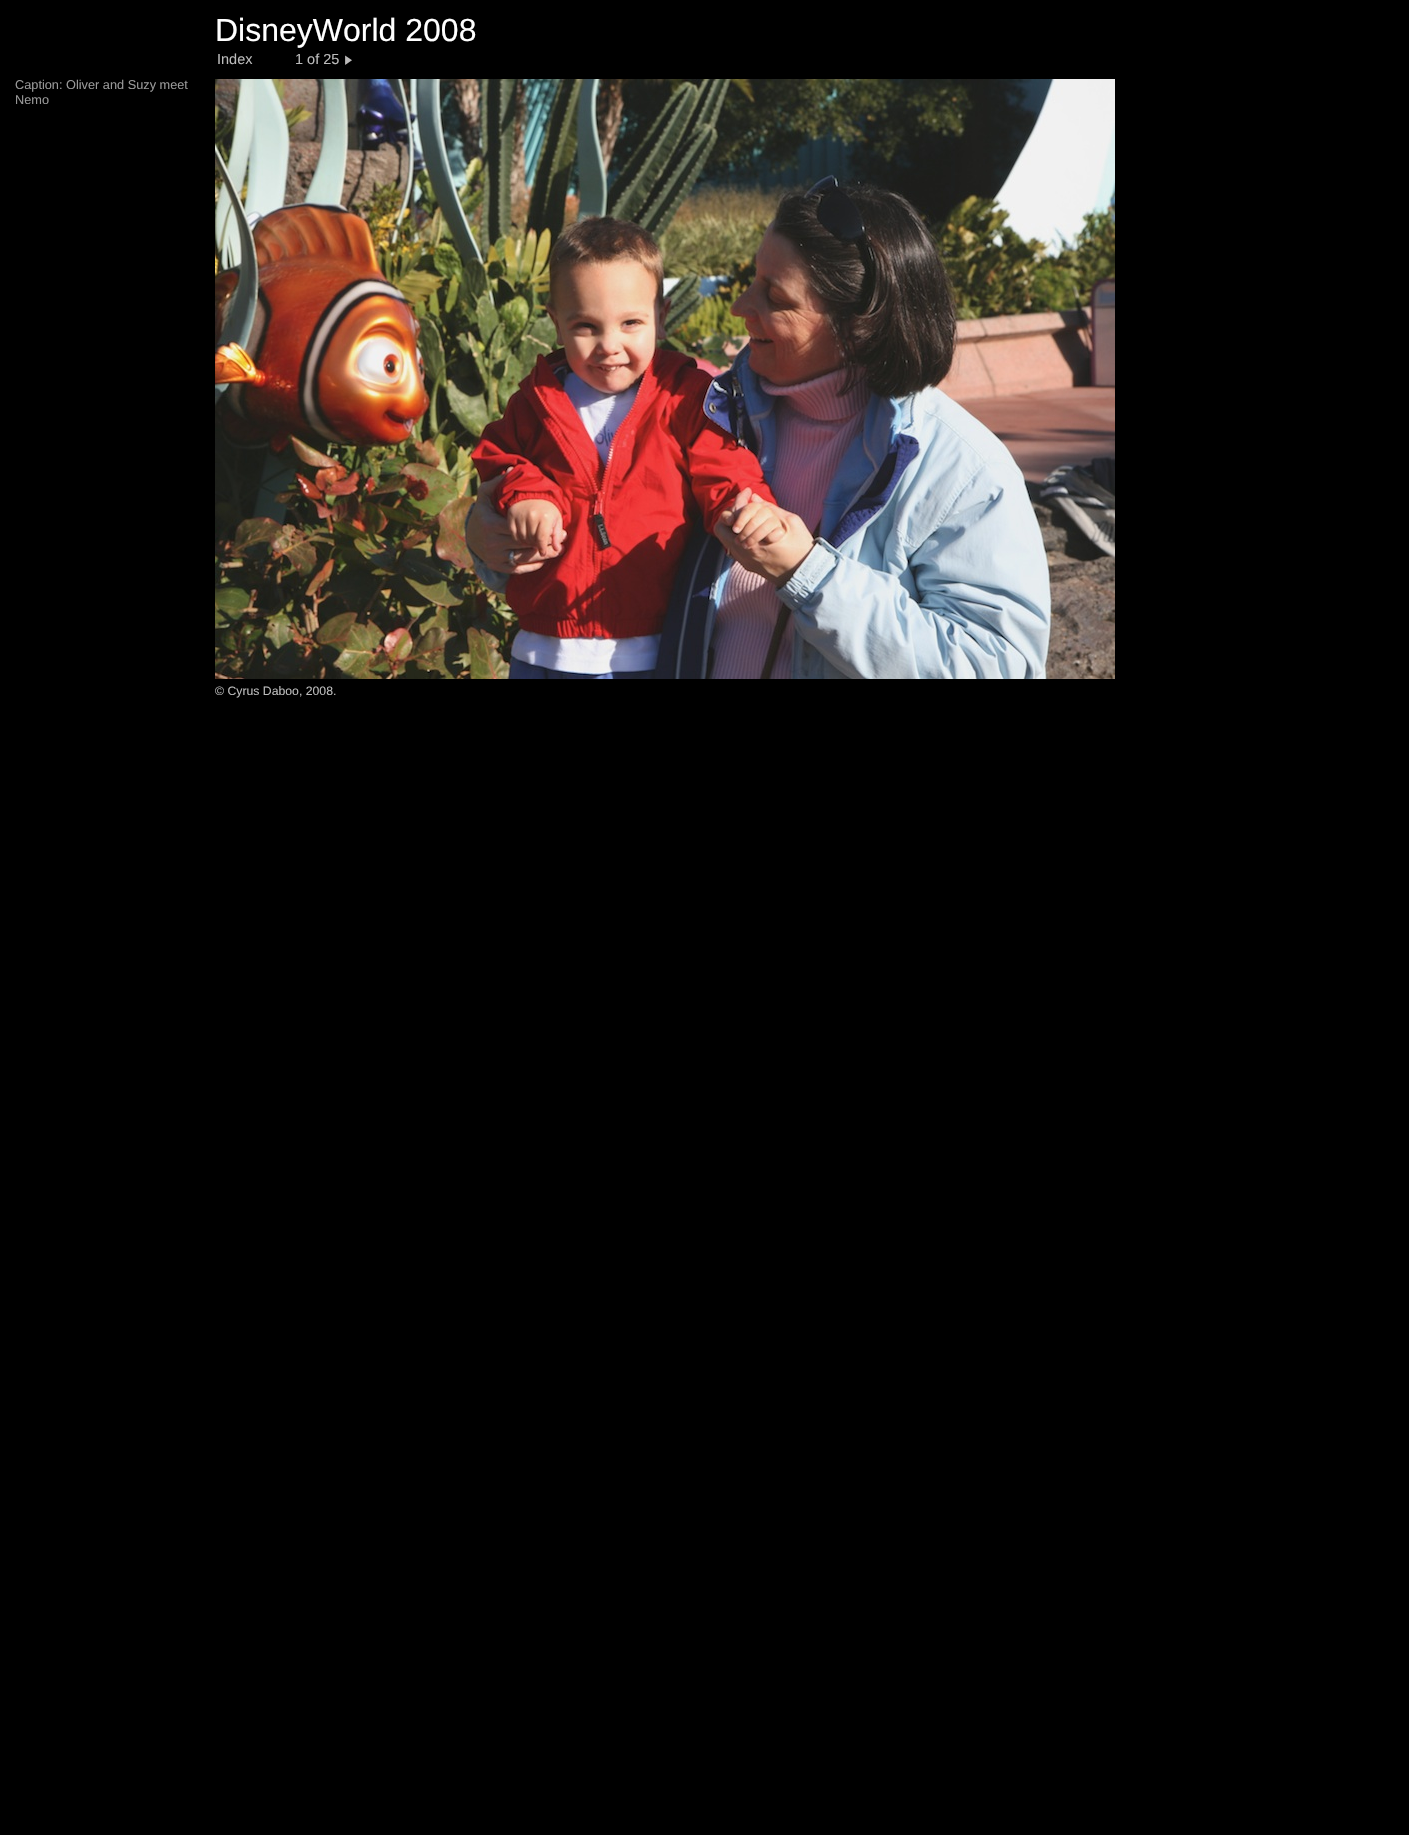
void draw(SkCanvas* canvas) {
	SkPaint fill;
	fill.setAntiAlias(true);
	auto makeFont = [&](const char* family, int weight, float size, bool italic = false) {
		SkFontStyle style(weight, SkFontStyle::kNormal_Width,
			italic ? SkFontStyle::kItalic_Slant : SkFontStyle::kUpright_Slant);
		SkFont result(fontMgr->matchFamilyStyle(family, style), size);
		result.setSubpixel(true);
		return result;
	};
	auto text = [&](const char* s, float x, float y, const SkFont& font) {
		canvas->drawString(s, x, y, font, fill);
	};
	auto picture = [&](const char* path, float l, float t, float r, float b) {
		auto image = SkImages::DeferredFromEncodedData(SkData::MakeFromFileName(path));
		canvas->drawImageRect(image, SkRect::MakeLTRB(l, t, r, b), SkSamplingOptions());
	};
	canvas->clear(0xFF000000);
	picture("image0.png", 345, 55, 352, 65);
	picture("image1.png", 215, 79, 1115, 679);
	auto font1 = makeFont("Liberation Sans", 400, 32);
	fill.setColor(0xFFFFFFFF);
	text("DisneyWorld 2008", 215, 41, font1);
	auto font2 = makeFont("Liberation Sans", 400, 14.5f);
	fill.setColor(0xFFBBBBBB);
	text("Index", 217, 64, font2);
	text("1 of 25", 295, 64, font2);
	auto font3 = makeFont("Liberation Sans", 400, 12.75f);
	fill.setColor(0xFF999999);
	text("Caption: Oliver and Suzy meet", 15, 89, font3);
	text("Nemo", 15, 104, font3);
	auto font4 = makeFont("Liberation Sans", 400, 12.25f);
	fill.setColor(0xFFBBBBBB);
	text("© Cyrus Daboo, 2008.", 215, 695, font4);
}
